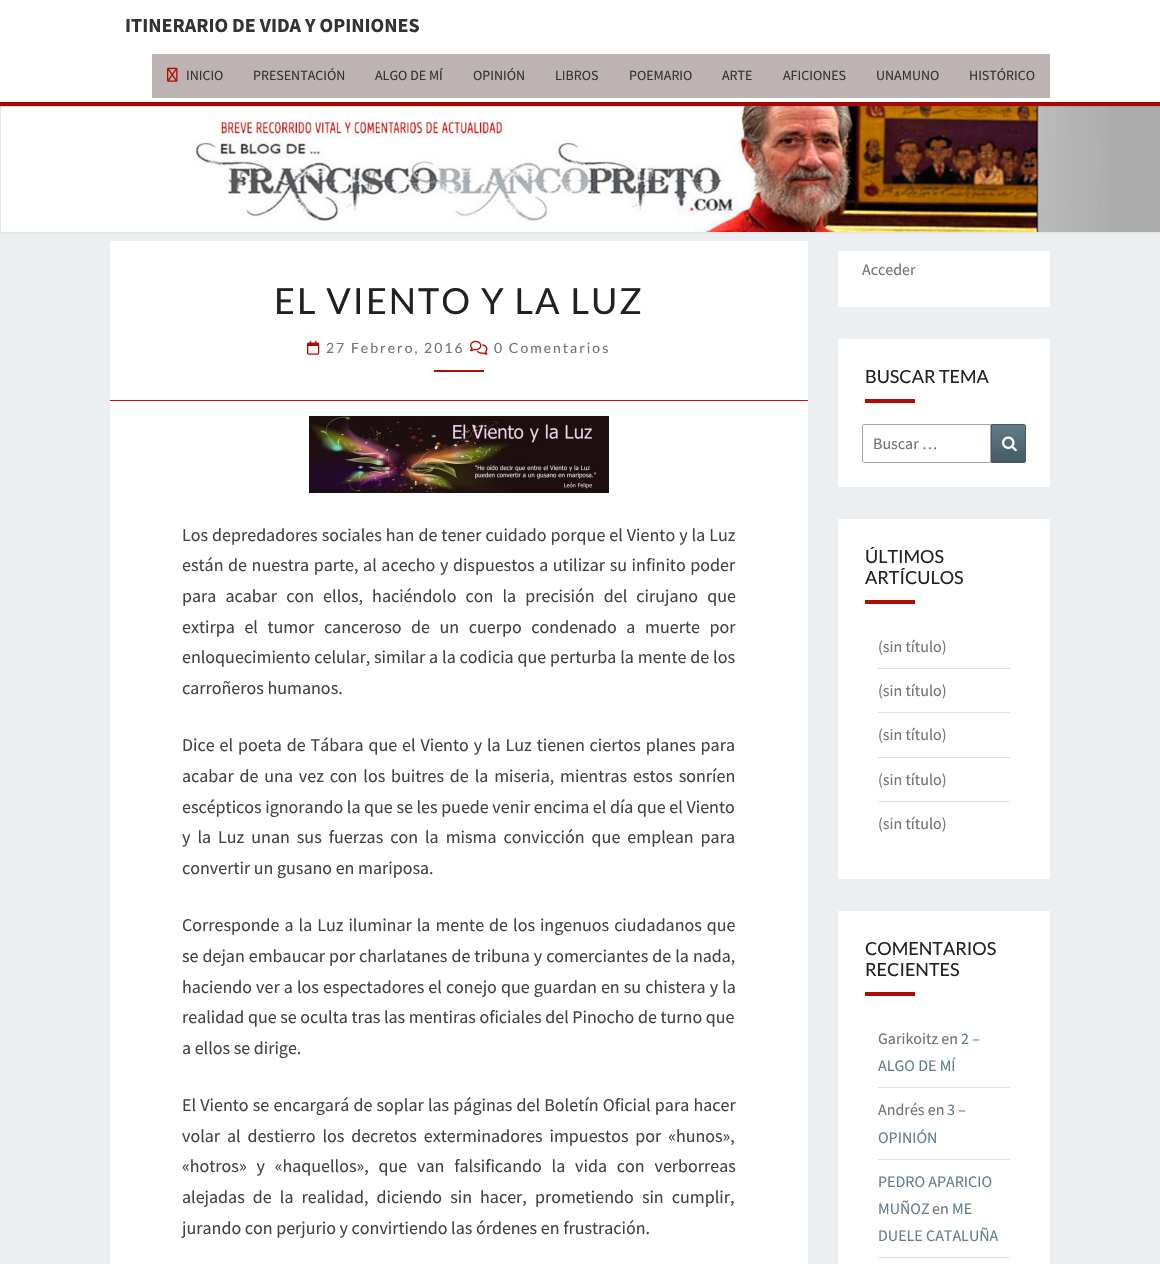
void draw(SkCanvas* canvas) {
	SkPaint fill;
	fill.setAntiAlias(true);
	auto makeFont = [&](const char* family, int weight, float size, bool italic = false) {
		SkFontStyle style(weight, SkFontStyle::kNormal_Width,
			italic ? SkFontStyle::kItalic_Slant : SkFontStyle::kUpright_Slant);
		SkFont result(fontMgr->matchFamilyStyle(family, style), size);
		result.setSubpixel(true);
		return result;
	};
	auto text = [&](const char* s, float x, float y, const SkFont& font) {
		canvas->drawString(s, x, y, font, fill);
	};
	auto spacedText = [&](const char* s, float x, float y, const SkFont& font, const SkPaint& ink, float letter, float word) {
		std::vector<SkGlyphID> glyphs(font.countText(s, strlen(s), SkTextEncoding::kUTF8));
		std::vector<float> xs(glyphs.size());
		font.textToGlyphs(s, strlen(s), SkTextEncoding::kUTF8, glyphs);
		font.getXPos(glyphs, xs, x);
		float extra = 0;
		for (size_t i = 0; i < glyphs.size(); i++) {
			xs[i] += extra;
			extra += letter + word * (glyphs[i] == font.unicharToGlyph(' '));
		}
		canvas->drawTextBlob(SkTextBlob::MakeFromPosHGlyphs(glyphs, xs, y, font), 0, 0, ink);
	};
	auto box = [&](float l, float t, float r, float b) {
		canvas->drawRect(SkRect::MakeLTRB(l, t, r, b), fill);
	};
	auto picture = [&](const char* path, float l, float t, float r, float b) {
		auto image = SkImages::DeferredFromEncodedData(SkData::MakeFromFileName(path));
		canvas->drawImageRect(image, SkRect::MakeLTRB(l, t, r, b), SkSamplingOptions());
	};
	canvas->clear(0xFFECEFF1);
	fill.setColor(0x4DB6B6B6);
	fill.setMaskFilter(SkMaskFilter::MakeBlur(kNormal_SkBlurStyle, 1));
	canvas->drawRect(SkRect::MakeLTRB(0, 102, 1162, 233), fill);
	fill.setMaskFilter(nullptr);
	picture("image1.png", 1, 106, 1160, 232);
	fill.setColor(0x33646464);
	fill.setMaskFilter(SkMaskFilter::MakeBlur(kNormal_SkBlurStyle, 0.5f));
	canvas->drawRect(SkRect::MakeLTRB(0, 1, 1160, 107), fill);
	fill.setMaskFilter(nullptr);
	fill.setColor(0xFFFFFFFF);
	box(0, 0, 1160, 102);
	fill.setColor(0xFFA80707);
	box(0, 102, 1160, 106);
	fill.setColor(0xFFBDB3B3);
	box(152, 54, 1050, 98);
	picture("image0.png", 167, 67, 178, 82);
	fill.setColor(0xFFFFFFFF);
	box(110, 241, 808, 1264);
	fill.setColor(0xFFC71010);
	box(110, 400, 808, 401);
	picture("image2.png", 307, 340, 320, 355);
	picture("image3.png", 470, 340, 488, 355);
	fill.setColor(0xFFAF0B00);
	box(434, 370, 484, 372);
	picture("image4.png", 309, 416, 609, 493);
	fill.setColor(0xFFFFFFFF);
	box(838, 251, 1050, 307);
	box(838, 339, 1050, 487);
	fill.setColor(0xFFAF0B00);
	box(865, 399, 915, 403);
	fill.setStyle(SkPaint::kStroke_Style);
	fill.setStrokeWidth(1);
	fill.setColor(0xFFAAA1A8);
	canvas->drawPath(SkPathBuilder().moveTo(864, 424.5f).lineTo(990.5f, 424.5f).lineTo(990.5f, 462.5f).lineTo(864, 462.5f).cubicTo(863, 462.5f, 862.5f, 462, 862.5f, 461).lineTo(862.5f, 426).cubicTo(862.5f, 425, 863, 424.5f, 864, 424.5f).close().detach(), fill);
	fill.setStyle(SkPaint::kFill_Style);
	{
		const SkColor colors[] = {0xFF607D8B, 0xFF455A64};
		const float stops[] = {0, 1};
		const SkPoint ends[] = {{1009, 425}, {1009, 462}};
		fill.setShader(SkGradientShader::MakeLinear(ends, colors, stops, 2, SkTileMode::kClamp));
		fill.setAlpha(255);
	}
	box(992, 425, 1026, 462);
	fill.setStyle(SkPaint::kStroke_Style);
	fill.setShader(nullptr);
	fill.setColor(0xFF455A64);
	canvas->drawPath(SkPathBuilder().moveTo(991.5f, 424.5f).lineTo(1024, 424.5f).cubicTo(1025, 424.5f, 1025.5f, 425, 1025.5f, 426).lineTo(1025.5f, 461).cubicTo(1025.5f, 462, 1025, 462.5f, 1024, 462.5f).lineTo(991.5f, 462.5f).close().detach(), fill);
	picture("image5.png", 1002, 436, 1017, 452);
	fill.setStyle(SkPaint::kFill_Style);
	fill.setColor(0xFFFFFFFF);
	box(838, 519, 1050, 879);
	fill.setColor(0xFFAF0B00);
	box(865, 600, 915, 604);
	fill.setColor(0xFFDDDDDD);
	box(878, 668, 1010, 669);
	box(878, 712, 1010, 713);
	box(878, 757, 1010, 758);
	box(878, 801, 1010, 802);
	fill.setColor(0xFFFFFFFF);
	box(838, 911, 1050, 1264);
	fill.setColor(0xFFAF0B00);
	box(865, 992, 915, 996);
	fill.setColor(0xFFDDDDDD);
	box(878, 1087, 1010, 1088);
	box(878, 1159, 1010, 1160);
	box(878, 1257, 1010, 1258);
	auto font1 = makeFont("Source Sans Pro", 700, 20);
	fill.setColor(0xFF333333);
	text("ITINERARIO DE VIDA Y OPINIONES", 125, 32, font1);
	auto font2 = makeFont("Source Sans Pro", 400, 14);
	text("INICIO", 186, 80, font2);
	text("PRESENTACIÓN", 253, 80, font2);
	text("ALGO DE MÍ", 375, 80, font2);
	text("OPINIÓN", 473, 80, font2);
	text("LIBROS", 555, 80, font2);
	text("POEMARIO", 629, 80, font2);
	text("ARTE", 722, 80, font2);
	text("AFICIONES", 783, 80, font2);
	text("UNAMUNO", 876, 80, font2);
	text("HISTÓRICO", 969, 80, font2);
	auto font3 = makeFont("Lato", 400, 36);
	fill.setColor(0xFF212121);
	spacedText("EL VIENTO Y LA LUZ", 274, 314, font3, fill, 2, 0);
	auto font4 = makeFont("Lato", 400, 14);
	fill.setColor(0xFF727272);
	spacedText("27 Febrero, 2016", 326, 353, font4, fill, 2, 0);
	spacedText("0 Comentarios", 494, 353, font4, fill, 2, 0);
	auto font5 = makeFont("Source Sans Pro", 400, 18);
	fill.setColor(0xFF424242);
	spacedText("Los depredadores sociales han de tener cuidado porque el Viento y la Luz", 182, 541, font5, fill, 0, 0.4f);
	spacedText("están de nuestra parte, al acecho y dispuestos a utilizar su infinito poder", 182, 571, font5, fill, 0, 1);
	spacedText("para acabar con ellos, haciéndolo con la precisión del cirujano que", 182, 602, font5, fill, 0, 5.5f);
	spacedText("extirpa el tumor canceroso de un cuerpo condenado a muerte por", 182, 633, font5, fill, 0, 6);
	spacedText("enloquecimiento celular, similar a la codicia que perturba la mente de los", 182, 663, font5, fill, 0, 0.25f);
	text("carroñeros humanos.", 182, 694, font5);
	spacedText("Dice el poeta de Tábara que el Viento y la Luz tienen ciertos planes para", 182, 751, font5, fill, 0, 1.3f);
	spacedText("acabar de una vez con los buitres de la miseria, mientras estos sonríen", 182, 782, font5, fill, 0, 2.25f);
	text("escépticos ignorando la que se les puede venir encima el día que el Viento", 182, 813, font5);
	spacedText("y la Luz unan sus fuerzas con la misma convicción que emplean para", 182, 843, font5, fill, 0, 3.4f);
	text("convertir un gusano en mariposa.", 182, 874, font5);
	spacedText("Corresponde a la Luz iluminar la mente de los ingenuos ciudadanos que", 182, 931, font5, fill, 0, 1.4f);
	spacedText("se dejan embaucar por charlatanes de tribuna y comerciantes de la nada,", 182, 962, font5, fill, 0, 0.4f);
	spacedText("haciendo ver a los espectadores el conejo que guardan en su chistera y la", 182, 993, font5, fill, 0, 0.5f);
	text("realidad que se oculta tras las mentiras oficiales del Pinocho de turno que", 182, 1023, font5);
	text("a ellos se dirige.", 182, 1054, font5);
	spacedText("El Viento se encargará de soplar las páginas del Boletín Oficial para hacer", 182, 1111, font5, fill, 0, 0.6f);
	spacedText("volar al destierro los decretos exterminadores impuestos por «hunos»,", 182, 1142, font5, fill, 0, 3.25f);
	spacedText("«hotros» y «haquellos», que van falsificando la vida con verborreas", 182, 1172, font5, fill, 0, 6.25f);
	spacedText("alejadas de la realidad, diciendo sin hacer, prometiendo sin cumplir,", 182, 1203, font5, fill, 0, 4.5f);
	text("jurando con perjurio y convirtiendo las órdenes en frustración.", 182, 1234, font5);
	auto font6 = makeFont("Source Sans Pro", 400, 16);
	fill.setColor(0xFF727272);
	text("Acceder", 862, 275, font6);
	auto font7 = makeFont("Lato", 400, 18);
	fill.setColor(0xFF212121);
	text("BUSCAR TEMA", 865, 383, font7);
	fill.setColor(0xFF727272);
	text("Buscar …", 873, 449, font6);
	fill.setColor(0xFF212121);
	text("ÚLTIMOS", 865, 563, font7);
	text("ARTÍCULOS", 865, 584, font7);
	fill.setColor(0xFF727272);
	text("(sin título)", 878, 652, font6);
	text("(sin título)", 878, 696, font6);
	text("(sin título)", 878, 740, font6);
	text("(sin título)", 878, 785, font6);
	text("(sin título)", 878, 829, font6);
	fill.setColor(0xFF212121);
	text("COMENTARIOS", 865, 955, font7);
	text("RECIENTES", 865, 976, font7);
	fill.setColor(0xFF727272);
	text("Garikoitz en", 878, 1044, font6);
	fill.setColor(0xFF607D8B);
	text("2 –", 961, 1044, font6);
	text("ALGO DE MÍ", 878, 1071, font6);
	fill.setColor(0xFF727272);
	text("Andrés en", 878, 1115, font6);
	fill.setColor(0xFF607D8B);
	text("3 –", 947, 1115, font6);
	text("OPINIÓN", 878, 1143, font6);
	text("PEDRO APARICIO", 878, 1187, font6);
	text("MUÑOZ", 878, 1214, font6);
	fill.setColor(0xFF727272);
	text("en", 932, 1214, font6);
	fill.setColor(0xFF607D8B);
	text("ME", 952, 1214, font6);
	text("DUELE CATALUÑA", 878, 1241, font6);
}
